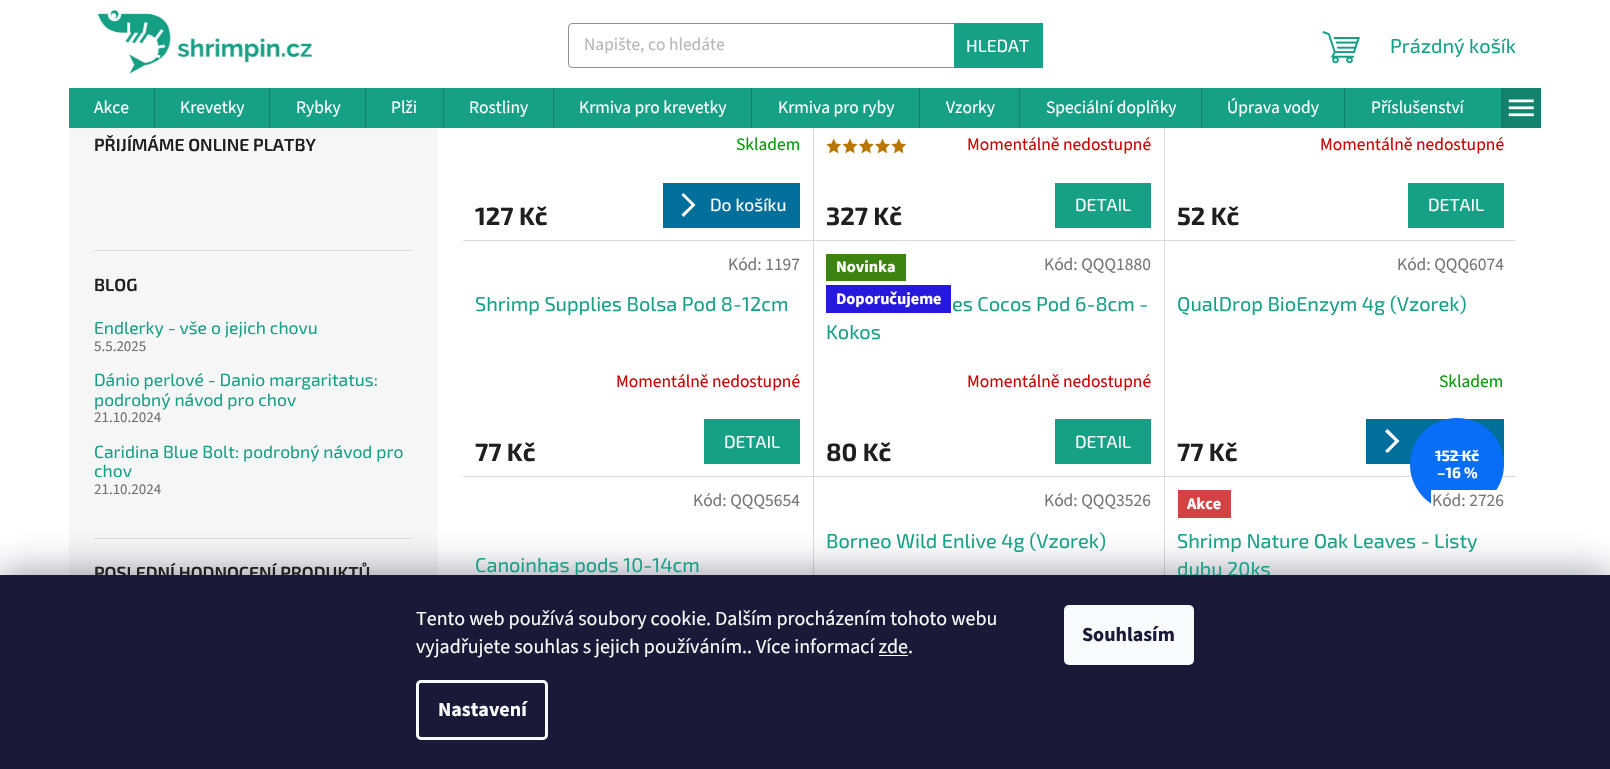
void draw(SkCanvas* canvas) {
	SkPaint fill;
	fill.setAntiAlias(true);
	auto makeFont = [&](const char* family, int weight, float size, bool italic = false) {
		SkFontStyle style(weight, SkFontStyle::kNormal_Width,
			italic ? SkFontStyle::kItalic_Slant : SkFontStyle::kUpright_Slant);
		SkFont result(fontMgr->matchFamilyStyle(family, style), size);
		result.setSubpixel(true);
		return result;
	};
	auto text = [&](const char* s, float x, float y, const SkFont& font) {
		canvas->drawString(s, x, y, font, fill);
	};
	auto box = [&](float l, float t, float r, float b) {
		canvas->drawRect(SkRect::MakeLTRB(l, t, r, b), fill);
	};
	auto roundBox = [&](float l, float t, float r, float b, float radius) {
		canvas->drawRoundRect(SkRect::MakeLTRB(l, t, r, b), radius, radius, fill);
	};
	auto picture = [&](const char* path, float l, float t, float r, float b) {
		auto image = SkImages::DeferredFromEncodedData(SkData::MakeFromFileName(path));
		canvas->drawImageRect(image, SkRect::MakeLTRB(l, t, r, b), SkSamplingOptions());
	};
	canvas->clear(0xFFFFFFFF);
	picture("image0.png", 97, 10, 312, 74);
	fill.setStyle(SkPaint::kStroke_Style);
	fill.setStrokeWidth(1);
	fill.setColor(0xFF919191);
	canvas->drawRoundRect(SkRect::MakeLTRB(568.5f, 23.5f, 1042.5f, 67.5f), 3.5f, 3.5f, fill);
	fill.setStyle(SkPaint::kFill_Style);
	fill.setColor(0xFF16A085);
	box(954, 23, 1043, 68);
	picture("image1.png", 1322, 31, 1360, 64);
	box(69, 88, 1501, 128);
	fill.setColor(0xFF12826C);
	box(154, 88, 155, 128);
	box(269, 88, 270, 128);
	box(365, 88, 366, 128);
	box(443, 88, 444, 128);
	box(553, 88, 554, 128);
	box(751, 88, 752, 128);
	box(919, 88, 920, 128);
	box(1019, 88, 1020, 128);
	box(1201, 88, 1202, 128);
	box(1344, 88, 1345, 128);
	box(1501, 88, 1541, 128);
	picture("image2.png", 1508, 99, 1534, 117);
	fill.setColor(0xFFF6F6F6);
	box(69, 128, 438, 575);
	fill.setColor(0xFFDADADA);
	box(94, 250, 413, 251);
	box(94, 538, 413, 539);
	box(813, 128, 814, 240);
	fill.setColor(0xFF006F9B);
	box(663, 183, 800, 228);
	fill.setColor(0xFFFFFFFF);
	canvas->drawPath(SkPathBuilder().moveTo(683.5f, 217).lineTo(681.5f, 214.5f).lineTo(691.5f, 205).lineTo(681.5f, 195).lineTo(683.5f, 193).lineTo(695.5f, 205).close().detach(), fill);
	fill.setColor(0xFFDADADA);
	box(1164, 128, 1165, 240);
	picture("image3.png", 826, 138, 842, 154);
	picture("image4.png", 842, 138, 858, 154);
	picture("image5.png", 858, 138, 874, 154);
	picture("image6.png", 875, 138, 890, 154);
	picture("image3.png", 891, 138, 907, 154);
	fill.setColor(0xFF16A085);
	box(1055, 183, 1151, 228);
	box(1408, 183, 1504, 228);
	fill.setColor(0xFFDADADA);
	box(463, 240, 1516, 241);
	box(813, 240, 814, 476);
	fill.setColor(0xFF16A085);
	box(704, 419, 800, 464);
	fill.setColor(0xFFDADADA);
	box(1164, 240, 1165, 476);
	fill.setColor(0xFF3C840F);
	box(826, 254, 906, 281);
	fill.setColor(0xFF2618DC);
	box(826, 285, 951, 313);
	fill.setColor(0xFF16A085);
	box(1055, 419, 1151, 464);
	fill.setColor(0xFF006F9B);
	box(1366, 419, 1504, 464);
	fill.setColor(0xFFFFFFFF);
	canvas->drawPath(SkPathBuilder().moveTo(1387.5f, 453).lineTo(1385, 451).lineTo(1395, 441).lineTo(1385, 431.5f).lineTo(1387.5f, 429).lineTo(1399.5f, 441).close().detach(), fill);
	fill.setColor(0xFFDADADA);
	box(463, 476, 1516, 477);
	box(813, 476, 814, 575);
	box(1164, 476, 1165, 575);
	fill.setColor(0xFF086DF7);
	roundBox(1410, 418, 1504, 511, 46.5f);
	fill.setColor(0xFFFFFFFF);
	box(1435, 455, 1479, 456);
	fill.setColor(0xFFD34343);
	box(1178, 490, 1231, 518);
	fill.setColor(0xFFFFFFFF);
	box(1431, 490, 1497, 511);
	fill.setColor(0x801B1939);
	fill.setMaskFilter(SkMaskFilter::MakeBlur(kNormal_SkBlurStyle, 19));
	canvas->drawRect(SkRect::MakeLTRB(0, 575, 1610, 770), fill);
	fill.setMaskFilter(nullptr);
	auto font1 = makeFont("Source Sans 3", 400, 17.5f);
	fill.setColor(0xFFB6B6B6);
	text("Napište, co hledáte", 584, 50, font1);
	auto font2 = makeFont("Exo 2", 400, 17.5f);
	fill.setColor(0xFFFFFFFF);
	text("HLEDAT", 966, 52, font2);
	auto font3 = makeFont("Exo 2", 400, 20);
	fill.setColor(0xFF16A085);
	text("Prázdný košík", 1390, 53, font3);
	fill.setColor(0xFFFFFFFF);
	text("Akce", 94, 113, font1);
	text("Krevetky", 180, 113, font1);
	text("Rybky", 296, 113, font1);
	text("Plži", 391, 113, font1);
	text("Rostliny", 469, 113, font1);
	text("Krmiva pro krevetky", 579, 113, font1);
	text("Krmiva pro ryby", 778, 113, font1);
	text("Vzorky", 946, 113, font1);
	text("Speciální doplňky", 1046, 113, font1);
	text("Úprava vody", 1227, 113, font1);
	text("Příslušenství", 1371, 113, font1);
	auto font4 = makeFont("Exo 2", 600, 17.5f);
	fill.setColor(0xFF1F1F1F);
	text("PŘIJÍMÁME ONLINE PLATBY", 94, 151, font4);
	text("BLOG", 94, 291, font4);
	fill.setColor(0xFF16A085);
	text("Endlerky - vše o jejich chovu", 94, 334, font2);
	auto font5 = makeFont("Source Sans 3", 400, 15);
	fill.setColor(0xFF707070);
	text("5.5.2025", 94, 351, font5);
	fill.setColor(0xFF16A085);
	text("Dánio perlové - Danio margaritatus:", 94, 386, font2);
	text("podrobný návod pro chov", 94, 406, font2);
	fill.setColor(0xFF707070);
	text("21.10.2024", 94, 422, font5);
	fill.setColor(0xFF16A085);
	text("Caridina Blue Bolt: podrobný návod pro", 94, 458, font2);
	text("chov", 94, 477, font2);
	fill.setColor(0xFF707070);
	text("21.10.2024", 94, 494, font5);
	fill.setColor(0xFF1F1F1F);
	text("POSLEDNÍ HODNOCENÍ PRODUKTŮ", 94, 579, font4);
	fill.setColor(0xFF009901);
	text("Skladem", 736, 150, font1);
	auto font6 = makeFont("Exo 2", 700, 25);
	fill.setColor(0xFF1F1F1F);
	text("127 Kč", 475, 225, font6);
	fill.setColor(0xFFFFFFFF);
	text("Do košíku", 710, 211, font2);
	fill.setColor(0xFFCB0000);
	text("Momentálně nedostupné", 967, 150, font1);
	fill.setColor(0xFF1F1F1F);
	text("327 Kč", 826, 225, font6);
	fill.setColor(0xFFFFFFFF);
	text("DETAIL", 1075, 211, font2);
	fill.setColor(0xFFCB0000);
	text("Momentálně nedostupné", 1320, 150, font1);
	fill.setColor(0xFF1F1F1F);
	text("52 Kč", 1177, 225, font6);
	fill.setColor(0xFFFFFFFF);
	text("DETAIL", 1428, 211, font2);
	fill.setColor(0xFF767676);
	text("Kód: 1197", 728, 270, font1);
	fill.setColor(0xFF16A085);
	text("Shrimp Supplies Bolsa Pod 8-12cm", 475, 311, font3);
	fill.setColor(0xFFCB0000);
	text("Momentálně nedostupné", 616, 387, font1);
	fill.setColor(0xFF1F1F1F);
	text("77 Kč", 475, 461, font6);
	fill.setColor(0xFFFFFFFF);
	text("DETAIL", 724, 448, font2);
	auto font7 = makeFont("Source Sans 3", 700, 16.25f);
	text("Novinka", 836, 272, font7);
	text("Doporučujeme", 836, 304, font7);
	fill.setColor(0xFF767676);
	text("Kód: QQQ1880", 1044, 270, font1);
	fill.setColor(0xFF16A085);
	text("es Cocos Pod 6-8cm -", 952, 311, font3);
	text("Kokos", 826, 339, font3);
	fill.setColor(0xFFCB0000);
	text("Momentálně nedostupné", 967, 387, font1);
	fill.setColor(0xFF1F1F1F);
	text("80 Kč", 826, 461, font6);
	fill.setColor(0xFFFFFFFF);
	text("DETAIL", 1075, 448, font2);
	fill.setColor(0xFF767676);
	text("Kód: QQQ6074", 1397, 270, font1);
	fill.setColor(0xFF16A085);
	text("QualDrop BioEnzym 4g (Vzorek)", 1177, 311, font3);
	fill.setColor(0xFF009901);
	text("Skladem", 1439, 387, font1);
	fill.setColor(0xFF1F1F1F);
	text("77 Kč", 1177, 461, font6);
	fill.setColor(0xFF767676);
	text("Kód: QQQ5654", 693, 506, font1);
	fill.setColor(0xFF16A085);
	text("Canoinhas pods 10-14cm", 475, 572, font3);
	fill.setColor(0xFF767676);
	text("Kód: QQQ3526", 1044, 506, font1);
	fill.setColor(0xFF16A085);
	text("Borneo Wild Enlive 4g (Vzorek)", 826, 548, font3);
	auto font8 = makeFont("Exo 2", 700, 15);
	fill.setColor(0xFFFFFFFF);
	text("152 Kč", 1435, 461, font8);
	text("–16 %", 1437, 478, font8);
	text("Akce", 1187, 509, font7);
	fill.setColor(0xFF767676);
	text("Kód: 2726", 1432, 506, font1);
	fill.setColor(0xFF16A085);
	text("Shrimp Nature Oak Leaves - Listy", 1177, 548, font3);
	text("dubu 20ks", 1177, 576, font3);
	fill.setColor(0xFF1A1937);
	box(0, 575, 1610, 769);
	auto font9 = makeFont("Source Sans 3", 400, 20);
	fill.setColor(0xFFF8FAFB);
	text("Tento web používá soubory cookie. Dalším procházením tohoto webu", 416, 625, font9);
	text("vyjadřujete souhlas s jejich používáním.. Více informací zde.", 416, 653, font9);
	box(879, 655, 908, 656);
	fill.setStyle(SkPaint::kStroke_Style);
	fill.setStrokeWidth(3);
	canvas->drawRoundRect(SkRect::MakeLTRB(417.5f, 681.5f, 546.5f, 738.5f), 3.5f, 3.5f, fill);
	auto font10 = makeFont("Source Sans 3", 700, 20);
	fill.setStyle(SkPaint::kFill_Style);
	text("Nastavení", 438, 716, font10);
	roundBox(1064, 605, 1194, 665, 5);
	fill.setColor(0xFF1A1937);
	text("Souhlasím", 1082, 641, font10);
}
